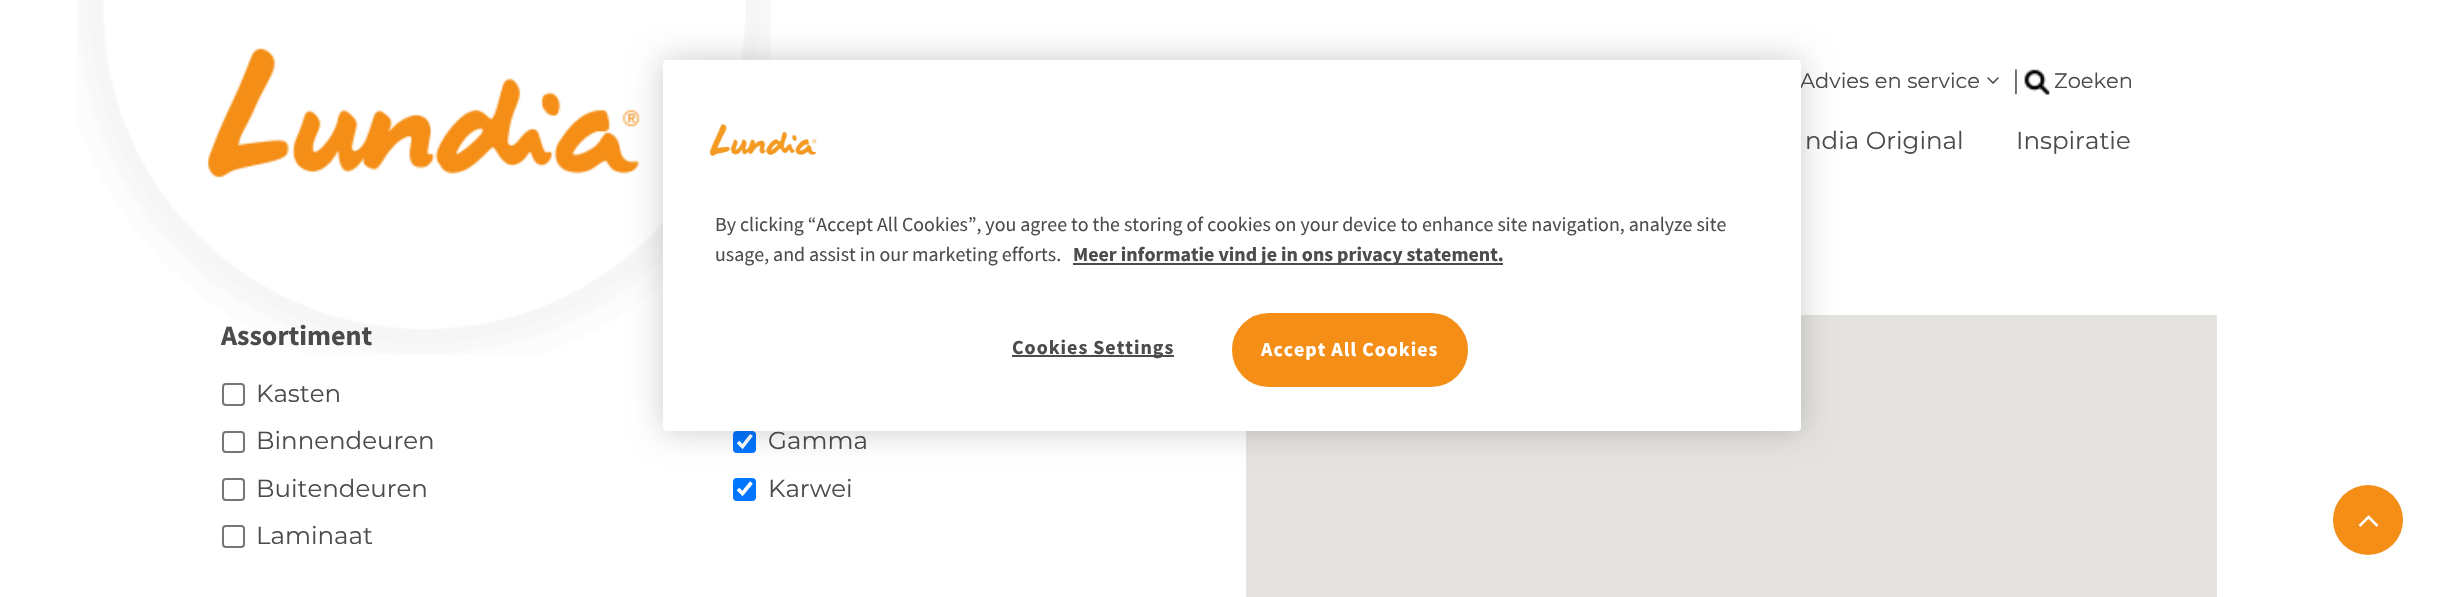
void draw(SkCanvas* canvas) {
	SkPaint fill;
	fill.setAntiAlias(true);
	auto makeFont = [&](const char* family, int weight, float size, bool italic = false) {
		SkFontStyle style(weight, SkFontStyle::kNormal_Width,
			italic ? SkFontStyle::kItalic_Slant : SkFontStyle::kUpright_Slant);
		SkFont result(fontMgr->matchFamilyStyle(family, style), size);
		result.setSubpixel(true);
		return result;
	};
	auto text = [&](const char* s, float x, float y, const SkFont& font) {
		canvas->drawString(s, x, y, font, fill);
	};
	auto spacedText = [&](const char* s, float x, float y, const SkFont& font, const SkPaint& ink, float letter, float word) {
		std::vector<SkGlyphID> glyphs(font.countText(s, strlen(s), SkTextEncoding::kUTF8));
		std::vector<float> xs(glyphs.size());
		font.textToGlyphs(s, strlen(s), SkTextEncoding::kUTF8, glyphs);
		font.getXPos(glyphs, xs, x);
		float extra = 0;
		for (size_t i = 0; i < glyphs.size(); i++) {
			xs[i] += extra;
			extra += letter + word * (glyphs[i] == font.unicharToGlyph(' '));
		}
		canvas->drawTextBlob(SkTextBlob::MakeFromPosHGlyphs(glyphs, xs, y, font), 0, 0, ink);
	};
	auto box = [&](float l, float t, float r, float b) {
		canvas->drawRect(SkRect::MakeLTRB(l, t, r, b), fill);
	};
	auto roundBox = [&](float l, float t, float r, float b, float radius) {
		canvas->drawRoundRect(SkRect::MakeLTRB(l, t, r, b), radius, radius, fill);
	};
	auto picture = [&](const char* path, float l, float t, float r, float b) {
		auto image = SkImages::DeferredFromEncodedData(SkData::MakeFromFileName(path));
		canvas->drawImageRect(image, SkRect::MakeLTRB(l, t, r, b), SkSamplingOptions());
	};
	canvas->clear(0xFFFFFFFF);
	picture("image0.png", 1987, 77, 1999, 84);
	picture("image1.png", 2024, 69, 2050, 95);
	fill.setStyle(SkPaint::kStroke_Style);
	fill.setStrokeWidth(2);
	fill.setColor(0xFF767676);
	canvas->drawRoundRect(SkRect::MakeLTRB(223, 384, 244, 405), 3, 3, fill);
	canvas->drawRoundRect(SkRect::MakeLTRB(223, 432, 244, 452), 3, 3, fill);
	canvas->drawRoundRect(SkRect::MakeLTRB(223, 479, 244, 500), 3, 3, fill);
	canvas->drawRoundRect(SkRect::MakeLTRB(223, 526, 244, 547), 3, 3, fill);
	fill.setStyle(SkPaint::kFill_Style);
	fill.setColor(0xFF0075FF);
	roundBox(733, 431, 756, 453, 4);
	fill.setStyle(SkPaint::kStroke_Style);
	fill.setStrokeWidth(3.6f);
	fill.setColor(0xFFFFFFFF);
	canvas->drawPath(SkPathBuilder().moveTo(738, 442).lineTo(742.5f, 446.5f).lineTo(751.5f, 435).detach(), fill);
	fill.setStyle(SkPaint::kFill_Style);
	fill.setColor(0xFF0075FF);
	roundBox(733, 478, 756, 501, 4);
	fill.setStyle(SkPaint::kStroke_Style);
	fill.setColor(0xFFFFFFFF);
	canvas->drawPath(SkPathBuilder().moveTo(738, 489).lineTo(742.5f, 493.5f).lineTo(751.5f, 482.5f).detach(), fill);
	fill.setStyle(SkPaint::kFill_Style);
	fill.setColor(0xFFE5E3DF);
	box(1246, 315, 2217, 597);
	fill.setColor(0xFFF48E16);
	canvas->drawCircle(2368, 520, 35, fill);
	picture("image4.png", 2358, 515, 2379, 527);
	auto font1 = makeFont("Montserrat", 400, 21);
	fill.setColor(0xFF4C4C4C);
	text("Advies en service", 1800, 88, font1);
	auto font2 = makeFont("Source Sans Pro", 400, 24.5f);
	text("|", 2013, 88, font2);
	text("Zoeken", 2054, 88, font1);
	auto font3 = makeFont("Montserrat", 400, 24.5f);
	text("ndia Original", 1805, 149, font3);
	text("Inspiratie", 2016, 149, font3);
	auto font4 = makeFont("Source Sans Pro", 700, 28);
	text("Assortiment", 221, 345, font4);
	picture("image2.png", 77, 0, 771, 355);
	text("Kasten", 256, 402, font3);
	text("Binnendeuren", 256, 449, font3);
	text("Buitendeuren", 256, 497, font3);
	text("Laminaat", 256, 544, font3);
	text("Gamma", 768, 449, font3);
	text("Karwei", 768, 497, font3);
	fill.setColor(0x33000000);
	fill.setMaskFilter(SkMaskFilter::MakeBlur(kNormal_SkBlurStyle, 16));
	canvas->drawRoundRect(SkRect::MakeLTRB(663, 60, 1801, 431), 4, 4, fill);
	fill.setMaskFilter(nullptr);
	fill.setColor(0xFFFFFFFF);
	roundBox(663, 60, 1801, 431, 4);
	picture("image3.png", 709, 124, 817, 156);
	auto font5 = makeFont("Source Sans Pro", 400, 19.92f);
	fill.setColor(0xFF4C4C4C);
	text("By clicking “Accept All Cookies”, you agree to the storing of cookies on your device to enhance site navigation, analyze site", 715, 231, font5);
	text("usage, and assist in our marketing efforts.", 715, 261, font5);
	box(1073, 263, 1503, 265);
	auto font6 = makeFont("Source Sans Pro", 700, 19.92f);
	text("Meer informatie vind je in ons privacy statement.", 1073, 261, font6);
	box(1012, 355, 1174, 357);
	spacedText("Cookies Settings", 1012, 354, font6, fill, 1, 0);
	fill.setColor(0xFFF48E16);
	canvas->drawRoundRect(SkRect::MakeLTRB(1233, 314, 1467, 386), 36, 36, fill);
	fill.setStyle(SkPaint::kStroke_Style);
	fill.setStrokeWidth(2);
	canvas->drawRoundRect(SkRect::MakeLTRB(1233, 314, 1467, 386), 36, 36, fill);
	fill.setStyle(SkPaint::kFill_Style);
	fill.setColor(0xFFFFFFFF);
	spacedText("Accept All Cookies", 1261, 356, font6, fill, 1, 0);
}
